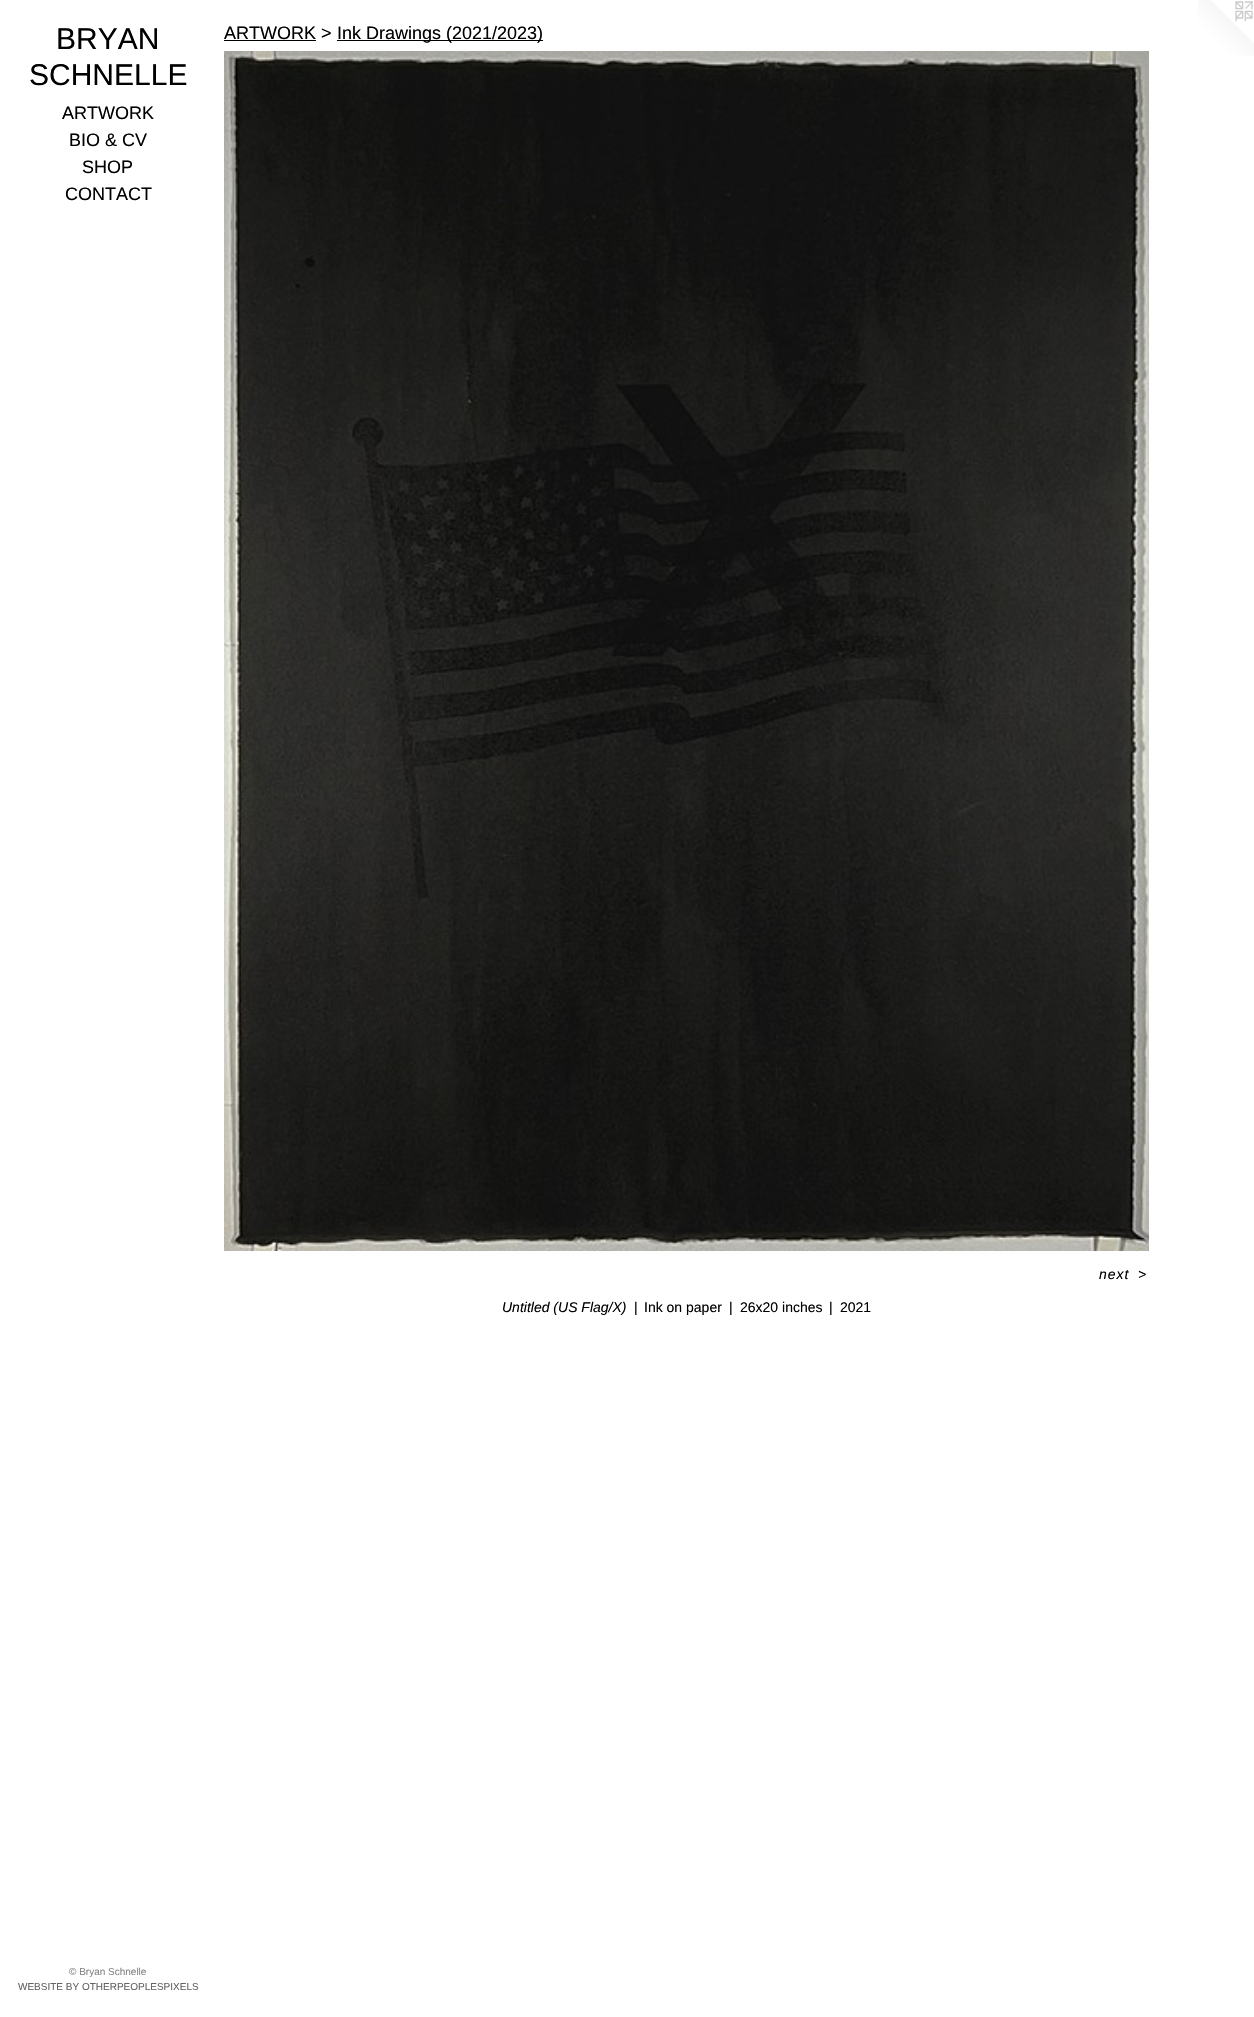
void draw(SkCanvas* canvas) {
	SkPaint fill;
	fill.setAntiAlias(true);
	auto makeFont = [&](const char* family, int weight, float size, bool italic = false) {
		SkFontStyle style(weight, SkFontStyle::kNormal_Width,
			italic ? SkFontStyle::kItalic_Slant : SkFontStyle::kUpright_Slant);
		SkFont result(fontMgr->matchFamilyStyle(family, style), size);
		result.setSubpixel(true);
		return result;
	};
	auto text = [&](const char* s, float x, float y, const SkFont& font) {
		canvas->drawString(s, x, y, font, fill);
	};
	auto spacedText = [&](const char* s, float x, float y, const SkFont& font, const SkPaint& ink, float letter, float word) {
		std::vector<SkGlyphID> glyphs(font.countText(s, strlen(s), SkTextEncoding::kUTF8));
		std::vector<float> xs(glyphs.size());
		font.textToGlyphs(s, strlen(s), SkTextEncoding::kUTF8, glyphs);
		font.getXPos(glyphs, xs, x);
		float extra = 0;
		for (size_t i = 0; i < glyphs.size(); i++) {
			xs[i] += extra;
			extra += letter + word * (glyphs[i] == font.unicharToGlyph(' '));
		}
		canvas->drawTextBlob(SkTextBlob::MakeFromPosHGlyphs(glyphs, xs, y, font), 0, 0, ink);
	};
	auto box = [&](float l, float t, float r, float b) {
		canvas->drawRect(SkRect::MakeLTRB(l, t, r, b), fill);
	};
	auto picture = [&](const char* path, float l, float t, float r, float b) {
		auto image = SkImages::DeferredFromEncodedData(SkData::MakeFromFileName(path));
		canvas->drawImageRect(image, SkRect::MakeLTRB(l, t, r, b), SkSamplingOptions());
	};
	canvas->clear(0xFFFFFFFF);
	fill.setColor(0xFF000000);
	box(224, 40, 316, 41);
	box(337, 40, 543, 41);
	picture("image0.png", 224, 51, 1149, 1251);
	picture("image1.png", 1198, 0, 1254, 56);
	auto font1 = makeFont("Liberation Sans", 400, 30);
	text("BRYAN", 56, 49, font1);
	text("SCHNELLE", 29, 85, font1);
	auto font2 = makeFont("Liberation Sans", 400, 18);
	text("ARTWORK", 62, 119, font2);
	text("BIO & CV", 69, 146, font2);
	text("SHOP", 82, 173, font2);
	text("CONTACT", 65, 200, font2);
	auto font3 = makeFont("Liberation Sans", 400, 10);
	fill.setColor(0xFF858585);
	text("© Bryan Schnelle", 69, 1975, font3);
	fill.setColor(0xFF636363);
	text("WEBSITE BY OTHERPEOPLESPIXELS", 18, 1990, font3);
	fill.setColor(0xFF000000);
	text("ARTWORK >", 224, 39, font2);
	text("Ink Drawings (2021/2023)", 337, 39, font2);
	auto font4 = makeFont("Liberation Sans", 400, 14, true);
	spacedText("next", 1099, 1279, font4, fill, 1, 0);
	spacedText(">", 1138, 1279, font4, fill, 1, 0);
	text("Untitled (US Flag/X)", 502, 1312, font4);
	auto font5 = makeFont("Liberation Sans", 400, 14);
	text("|", 634, 1312, font5);
	text("Ink on paper", 644, 1312, font5);
	text("|", 729, 1312, font5);
	text("26x20 inches", 740, 1312, font5);
	text("|", 829, 1312, font5);
	text("2021", 840, 1312, font5);
}
